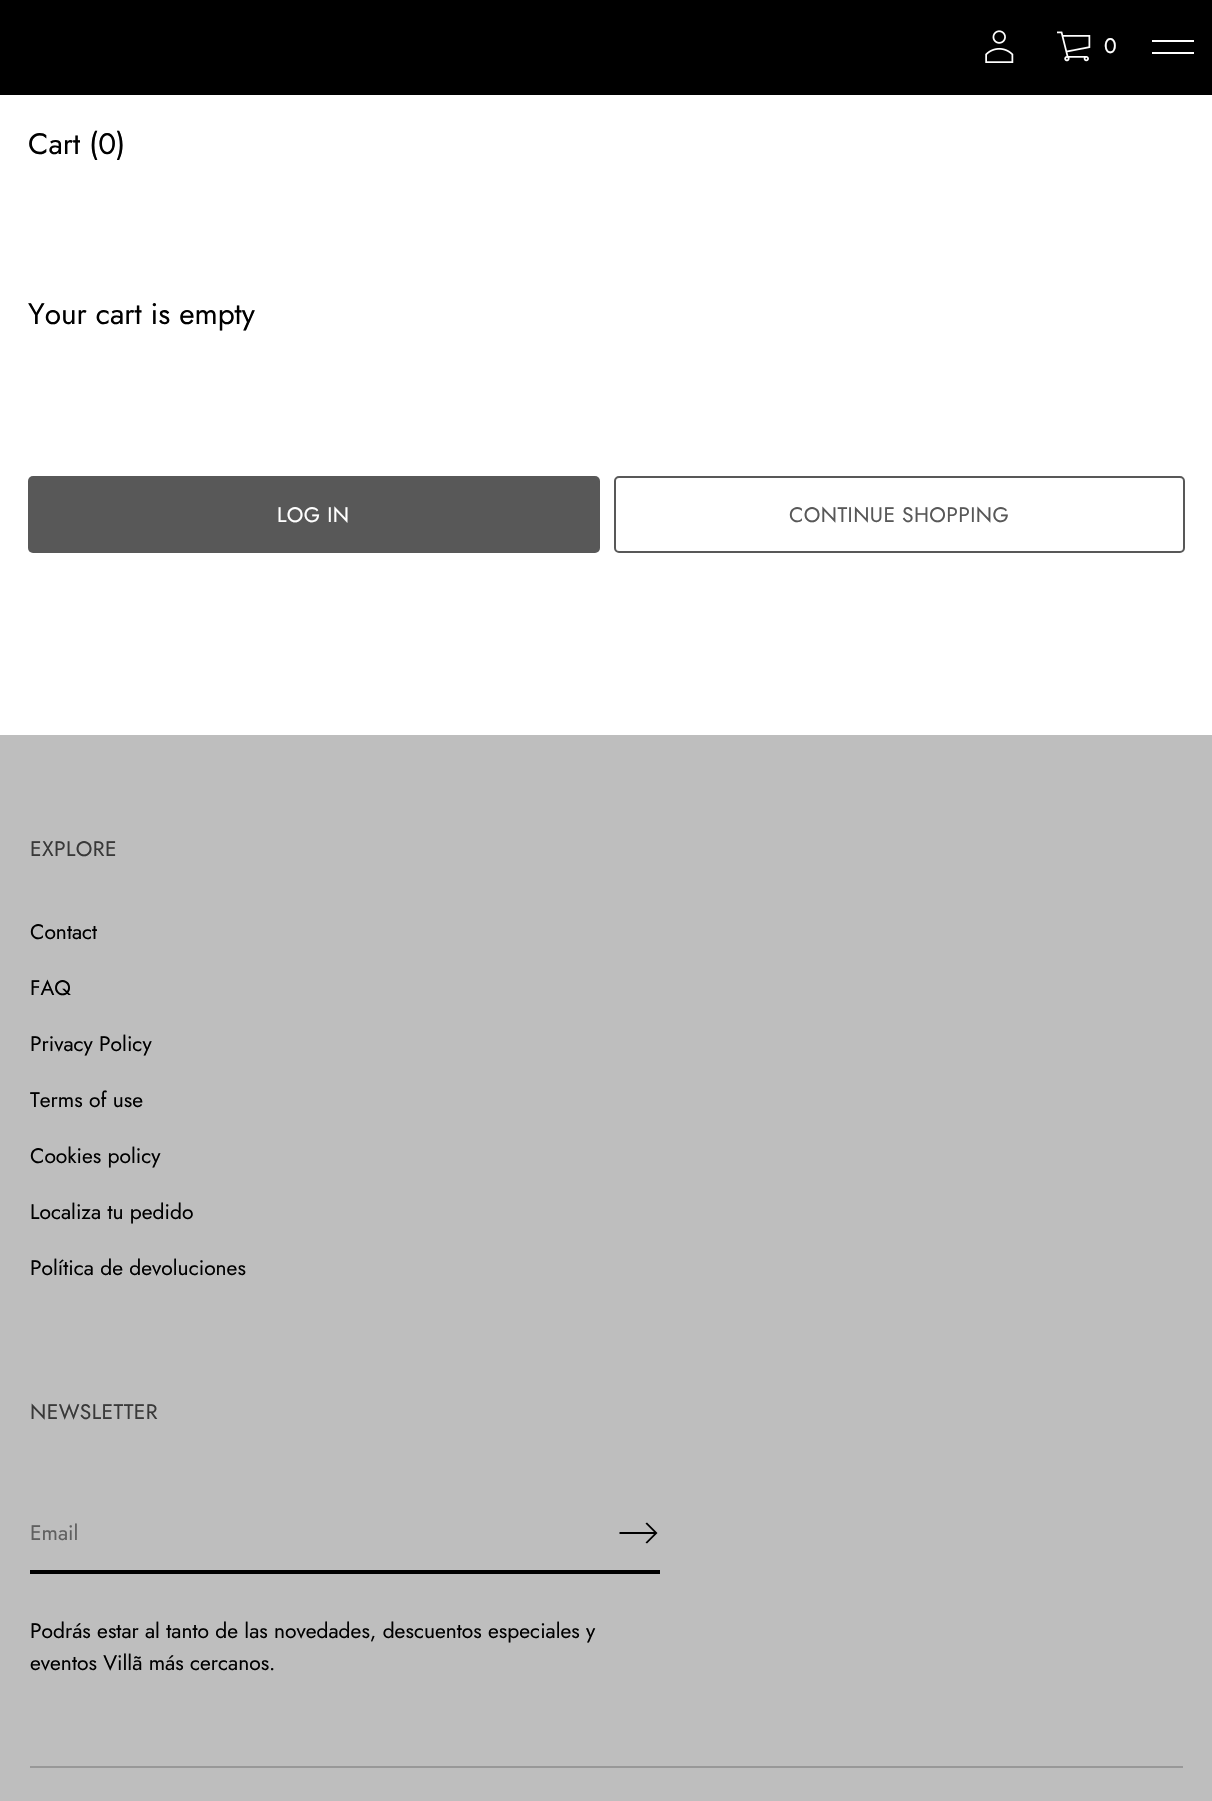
void draw(SkCanvas* canvas) {
	SkPaint fill;
	fill.setAntiAlias(true);
	auto makeFont = [&](const char* family, int weight, float size, bool italic = false) {
		SkFontStyle style(weight, SkFontStyle::kNormal_Width,
			italic ? SkFontStyle::kItalic_Slant : SkFontStyle::kUpright_Slant);
		SkFont result(fontMgr->matchFamilyStyle(family, style), size);
		result.setSubpixel(true);
		return result;
	};
	auto text = [&](const char* s, float x, float y, const SkFont& font) {
		canvas->drawString(s, x, y, font, fill);
	};
	auto spacedText = [&](const char* s, float x, float y, const SkFont& font, const SkPaint& ink, float letter, float word) {
		std::vector<SkGlyphID> glyphs(font.countText(s, strlen(s), SkTextEncoding::kUTF8));
		std::vector<float> xs(glyphs.size());
		font.textToGlyphs(s, strlen(s), SkTextEncoding::kUTF8, glyphs);
		font.getXPos(glyphs, xs, x);
		float extra = 0;
		for (size_t i = 0; i < glyphs.size(); i++) {
			xs[i] += extra;
			extra += letter + word * (glyphs[i] == font.unicharToGlyph(' '));
		}
		canvas->drawTextBlob(SkTextBlob::MakeFromPosHGlyphs(glyphs, xs, y, font), 0, 0, ink);
	};
	auto box = [&](float l, float t, float r, float b) {
		canvas->drawRect(SkRect::MakeLTRB(l, t, r, b), fill);
	};
	auto roundBox = [&](float l, float t, float r, float b, float radius) {
		canvas->drawRoundRect(SkRect::MakeLTRB(l, t, r, b), radius, radius, fill);
	};
	auto picture = [&](const char* path, float l, float t, float r, float b) {
		auto image = SkImages::DeferredFromEncodedData(SkData::MakeFromFileName(path));
		canvas->drawImageRect(image, SkRect::MakeLTRB(l, t, r, b), SkSamplingOptions());
	};
	canvas->clear(0xFFFFFFFF);
	fill.setColor(0xFF000000);
	box(0, 0, 1212, 95);
	picture("image0.png", 985, 30, 1014, 63);
	picture("image1.png", 1057, 31, 1091, 62);
	fill.setColor(0xFFFFFFFF);
	canvas->drawPath(SkPathBuilder().moveTo(1152, 40).lineTo(1152, 42).lineTo(1194, 42).lineTo(1194, 40).close().moveTo(1152, 54).lineTo(1194, 54).lineTo(1194, 52).lineTo(1152, 52).close().detach(), fill);
	fill.setColor(0xFF585858);
	roundBox(28, 476, 600, 553, 5);
	fill.setStyle(SkPaint::kStroke_Style);
	fill.setStrokeWidth(2);
	canvas->drawRoundRect(SkRect::MakeLTRB(615, 477, 1184, 552), 4, 4, fill);
	fill.setStyle(SkPaint::kFill_Style);
	fill.setColor(0xFFBEBEBE);
	box(0, 735, 1212, 1801);
	fill.setColor(0xFF000000);
	box(30, 1570, 660, 1574);
	canvas->drawPath(SkPathBuilder().moveTo(645.5f, 1523.5f).lineTo(654, 1532).lineTo(619.5f, 1532).lineTo(619.5f, 1534).lineTo(654, 1534).lineTo(645.5f, 1542.5f).lineTo(647, 1543.5f).lineTo(657.5f, 1533).lineTo(647, 1522.5f).close().detach(), fill);
	fill.setColor(0xFF989898);
	box(30, 1766, 1183, 1768);
	auto font1 = makeFont("Jost", 400, 21);
	fill.setColor(0xFFFFFFFF);
	text("0", 1104, 53, font1);
	auto font2 = makeFont("Jost", 400, 29.75f);
	fill.setColor(0xFF000000);
	text("Cart (0)", 28, 154, font2);
	text("Your cart is empty", 28, 324, font2);
	fill.setColor(0xFFFFFFFF);
	spacedText("LOG IN", 277, 522, font1, fill, 0.4f, 0);
	fill.setColor(0xFF585858);
	spacedText("CONTINUE SHOPPING", 789, 522, font1, fill, 0.4f, 0);
	fill.setColor(0xFF393939);
	spacedText("EXPLORE", 30, 856, font1, fill, 0.4f, 0);
	fill.setColor(0xFF000000);
	text("Contact", 30, 939, font1);
	text("FAQ", 30, 995, font1);
	text("Privacy Policy", 30, 1051, font1);
	text("Terms of use", 30, 1107, font1);
	text("Cookies policy", 30, 1163, font1);
	text("Localiza tu pedido", 30, 1219, font1);
	text("Política de devoluciones", 30, 1275, font1);
	fill.setColor(0xFF393939);
	spacedText("NEWSLETTER", 30, 1419, font1, fill, 0.4f, 0);
	fill.setColor(0xFF5F5F5F);
	text("Email", 30, 1540, font1);
	fill.setColor(0xFF000000);
	text("Podrás estar al tanto de las novedades, descuentos especiales y", 30, 1638, font1);
	text("eventos Villã más cercanos.", 30, 1670, font1);
}
